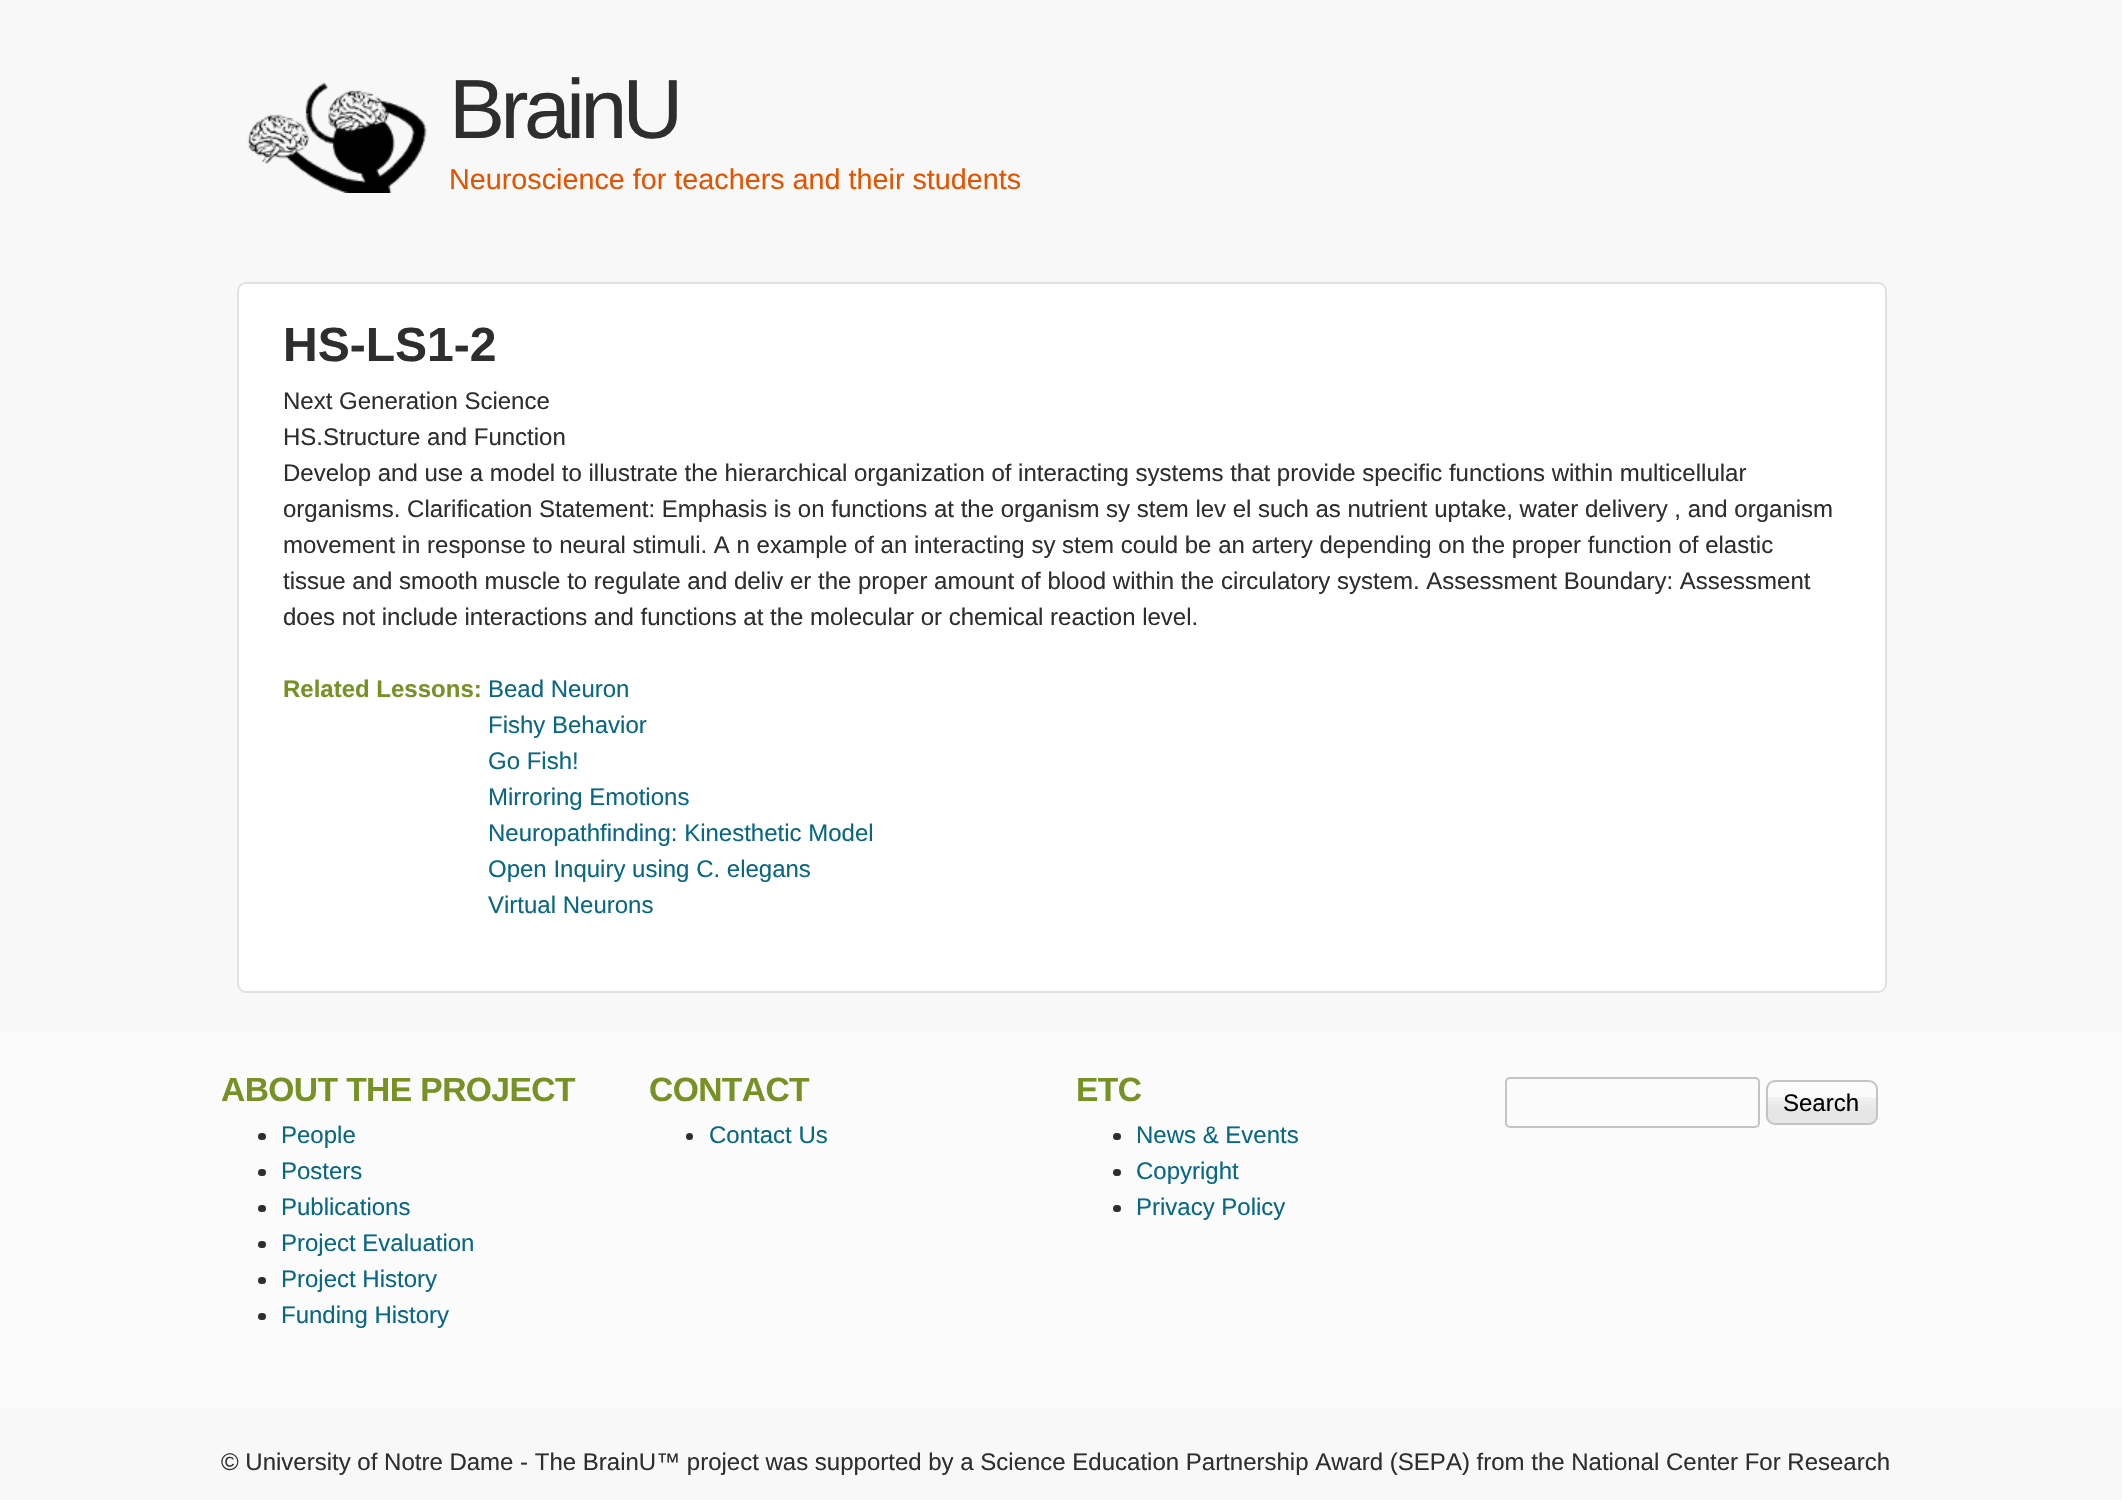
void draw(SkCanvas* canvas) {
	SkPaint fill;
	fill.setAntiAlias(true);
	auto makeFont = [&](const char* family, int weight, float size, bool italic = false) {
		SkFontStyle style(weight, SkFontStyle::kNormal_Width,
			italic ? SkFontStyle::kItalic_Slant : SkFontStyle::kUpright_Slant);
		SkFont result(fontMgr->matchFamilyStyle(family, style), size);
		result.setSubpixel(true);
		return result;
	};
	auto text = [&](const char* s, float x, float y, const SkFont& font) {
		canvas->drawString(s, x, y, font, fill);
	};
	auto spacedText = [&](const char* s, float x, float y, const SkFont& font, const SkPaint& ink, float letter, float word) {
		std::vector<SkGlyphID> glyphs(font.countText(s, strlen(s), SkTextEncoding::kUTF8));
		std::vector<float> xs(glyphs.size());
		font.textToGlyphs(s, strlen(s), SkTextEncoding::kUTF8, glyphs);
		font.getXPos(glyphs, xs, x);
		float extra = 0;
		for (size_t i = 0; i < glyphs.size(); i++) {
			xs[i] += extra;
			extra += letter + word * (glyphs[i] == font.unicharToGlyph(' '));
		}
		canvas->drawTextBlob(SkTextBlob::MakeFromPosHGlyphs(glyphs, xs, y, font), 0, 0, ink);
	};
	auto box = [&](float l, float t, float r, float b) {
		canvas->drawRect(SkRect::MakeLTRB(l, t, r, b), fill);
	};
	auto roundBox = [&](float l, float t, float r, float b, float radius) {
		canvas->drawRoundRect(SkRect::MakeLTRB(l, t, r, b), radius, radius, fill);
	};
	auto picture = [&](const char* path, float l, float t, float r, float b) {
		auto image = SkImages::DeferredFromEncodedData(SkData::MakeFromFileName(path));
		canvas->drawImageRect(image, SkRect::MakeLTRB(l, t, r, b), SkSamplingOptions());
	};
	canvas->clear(0xFFF8F8F8);
	picture("image0.png", 247, 82, 427, 193);
	fill.setColor(0xFFFFFFFF);
	canvas->drawRoundRect(SkRect::MakeLTRB(238, 283, 1886, 992), 8, 8, fill);
	fill.setStyle(SkPaint::kStroke_Style);
	fill.setStrokeWidth(2);
	fill.setColor(0xFFE1E1E1);
	canvas->drawRoundRect(SkRect::MakeLTRB(238, 283, 1886, 992), 8, 8, fill);
	fill.setStyle(SkPaint::kFill_Style);
	fill.setColor(0xFFFBFBFB);
	box(0, 1031, 2122, 1407);
	fill.setColor(0xFF2E2E2E);
	roundBox(258, 1133, 266, 1140, 3.5f);
	roundBox(258, 1169, 266, 1176, 3.5f);
	roundBox(258, 1205, 266, 1212, 3.5f);
	roundBox(258, 1241, 266, 1248, 3.5f);
	roundBox(258, 1277, 266, 1284, 3.5f);
	roundBox(258, 1313, 266, 1320, 3.5f);
	canvas->drawCircle(689.5f, 1136.5f, 3.5f, fill);
	roundBox(1113, 1133, 1121, 1140, 3.5f);
	roundBox(1113, 1169, 1121, 1176, 3.5f);
	roundBox(1113, 1205, 1121, 1212, 3.5f);
	fill.setStyle(SkPaint::kStroke_Style);
	fill.setColor(0xFFC4C4C4);
	canvas->drawRoundRect(SkRect::MakeLTRB(1506, 1078, 1759, 1127), 4, 4, fill);
	picture("image1.png", 1765, 1097, 1878, 1125);
	canvas->drawRoundRect(SkRect::MakeLTRB(1767, 1081, 1877, 1124), 8, 8, fill);
	auto font1 = makeFont("Liberation Sans", 400, 84);
	fill.setStyle(SkPaint::kFill_Style);
	fill.setColor(0xFF2E2E2E);
	spacedText("BrainU", 449, 138, font1, fill, -4.5f, 0);
	auto font2 = makeFont("Liberation Sans", 400, 28.75f);
	fill.setColor(0xFFE25400);
	text("Neuroscience for teachers and their students", 449, 189, font2);
	auto font3 = makeFont("Liberation Sans", 700, 48);
	fill.setColor(0xFF2E2E2E);
	text("HS-LS1-2", 283, 361, font3);
	auto font4 = makeFont("Liberation Sans", 400, 24);
	text("Next Generation Science", 283, 409, font4);
	text("HS.Structure and Function", 283, 445, font4);
	text("Develop and use a model to illustrate the hierarchical organization of interacting systems that provide specific functions within multicellular", 283, 481, font4);
	text("organisms. Clarification Statement: Emphasis is on functions at the organism sy stem lev el such as nutrient uptake, water delivery , and organism", 283, 517, font4);
	text("movement in response to neural stimuli. A n example of an interacting sy stem could be an artery depending on the proper function of elastic", 283, 553, font4);
	text("tissue and smooth muscle to regulate and deliv er the proper amount of blood within the circulatory system. Assessment Boundary: Assessment", 283, 589, font4);
	text("does not include interactions and functions at the molecular or chemical reaction level.", 283, 625, font4);
	auto font5 = makeFont("Liberation Sans", 700, 24);
	fill.setColor(0xFF779125);
	text("Related Lessons:", 283, 697, font5);
	fill.setColor(0xFF086782);
	text("Bead Neuron", 488, 697, font4);
	text("Fishy Behavior", 488, 733, font4);
	text("Go Fish!", 488, 769, font4);
	text("Mirroring Emotions", 488, 805, font4);
	text("Neuropathfinding: Kinesthetic Model", 488, 841, font4);
	text("Open Inquiry using C. elegans", 488, 877, font4);
	text("Virtual Neurons", 488, 913, font4);
	auto font6 = makeFont("Liberation Sans", 700, 33.6f);
	fill.setColor(0xFF779125);
	spacedText("ABOUT THE PROJECT", 221, 1101, font6, fill, -0.6f, 0);
	fill.setColor(0xFF086782);
	text("People", 281, 1143, font4);
	text("Posters", 281, 1179, font4);
	text("Publications", 281, 1215, font4);
	text("Project Evaluation", 281, 1251, font4);
	text("Project History", 281, 1287, font4);
	text("Funding History", 281, 1323, font4);
	fill.setColor(0xFF779125);
	spacedText("CONTACT", 649, 1101, font6, fill, -0.6f, 0);
	fill.setColor(0xFF086782);
	text("Contact Us", 709, 1143, font4);
	fill.setColor(0xFF779125);
	spacedText("ETC", 1076, 1101, font6, fill, -0.6f, 0);
	fill.setColor(0xFF086782);
	text("News & Events", 1136, 1143, font4);
	text("Copyright", 1136, 1179, font4);
	text("Privacy Policy", 1136, 1215, font4);
	fill.setColor(0xFF000000);
	text("Search", 1783, 1111, font4);
	fill.setColor(0xFF2E2E2E);
	text("© University of Notre Dame - The BrainU™ project was supported by a Science Education Partnership Award (SEPA) from the National Center For Research", 221, 1470, font4);
}
